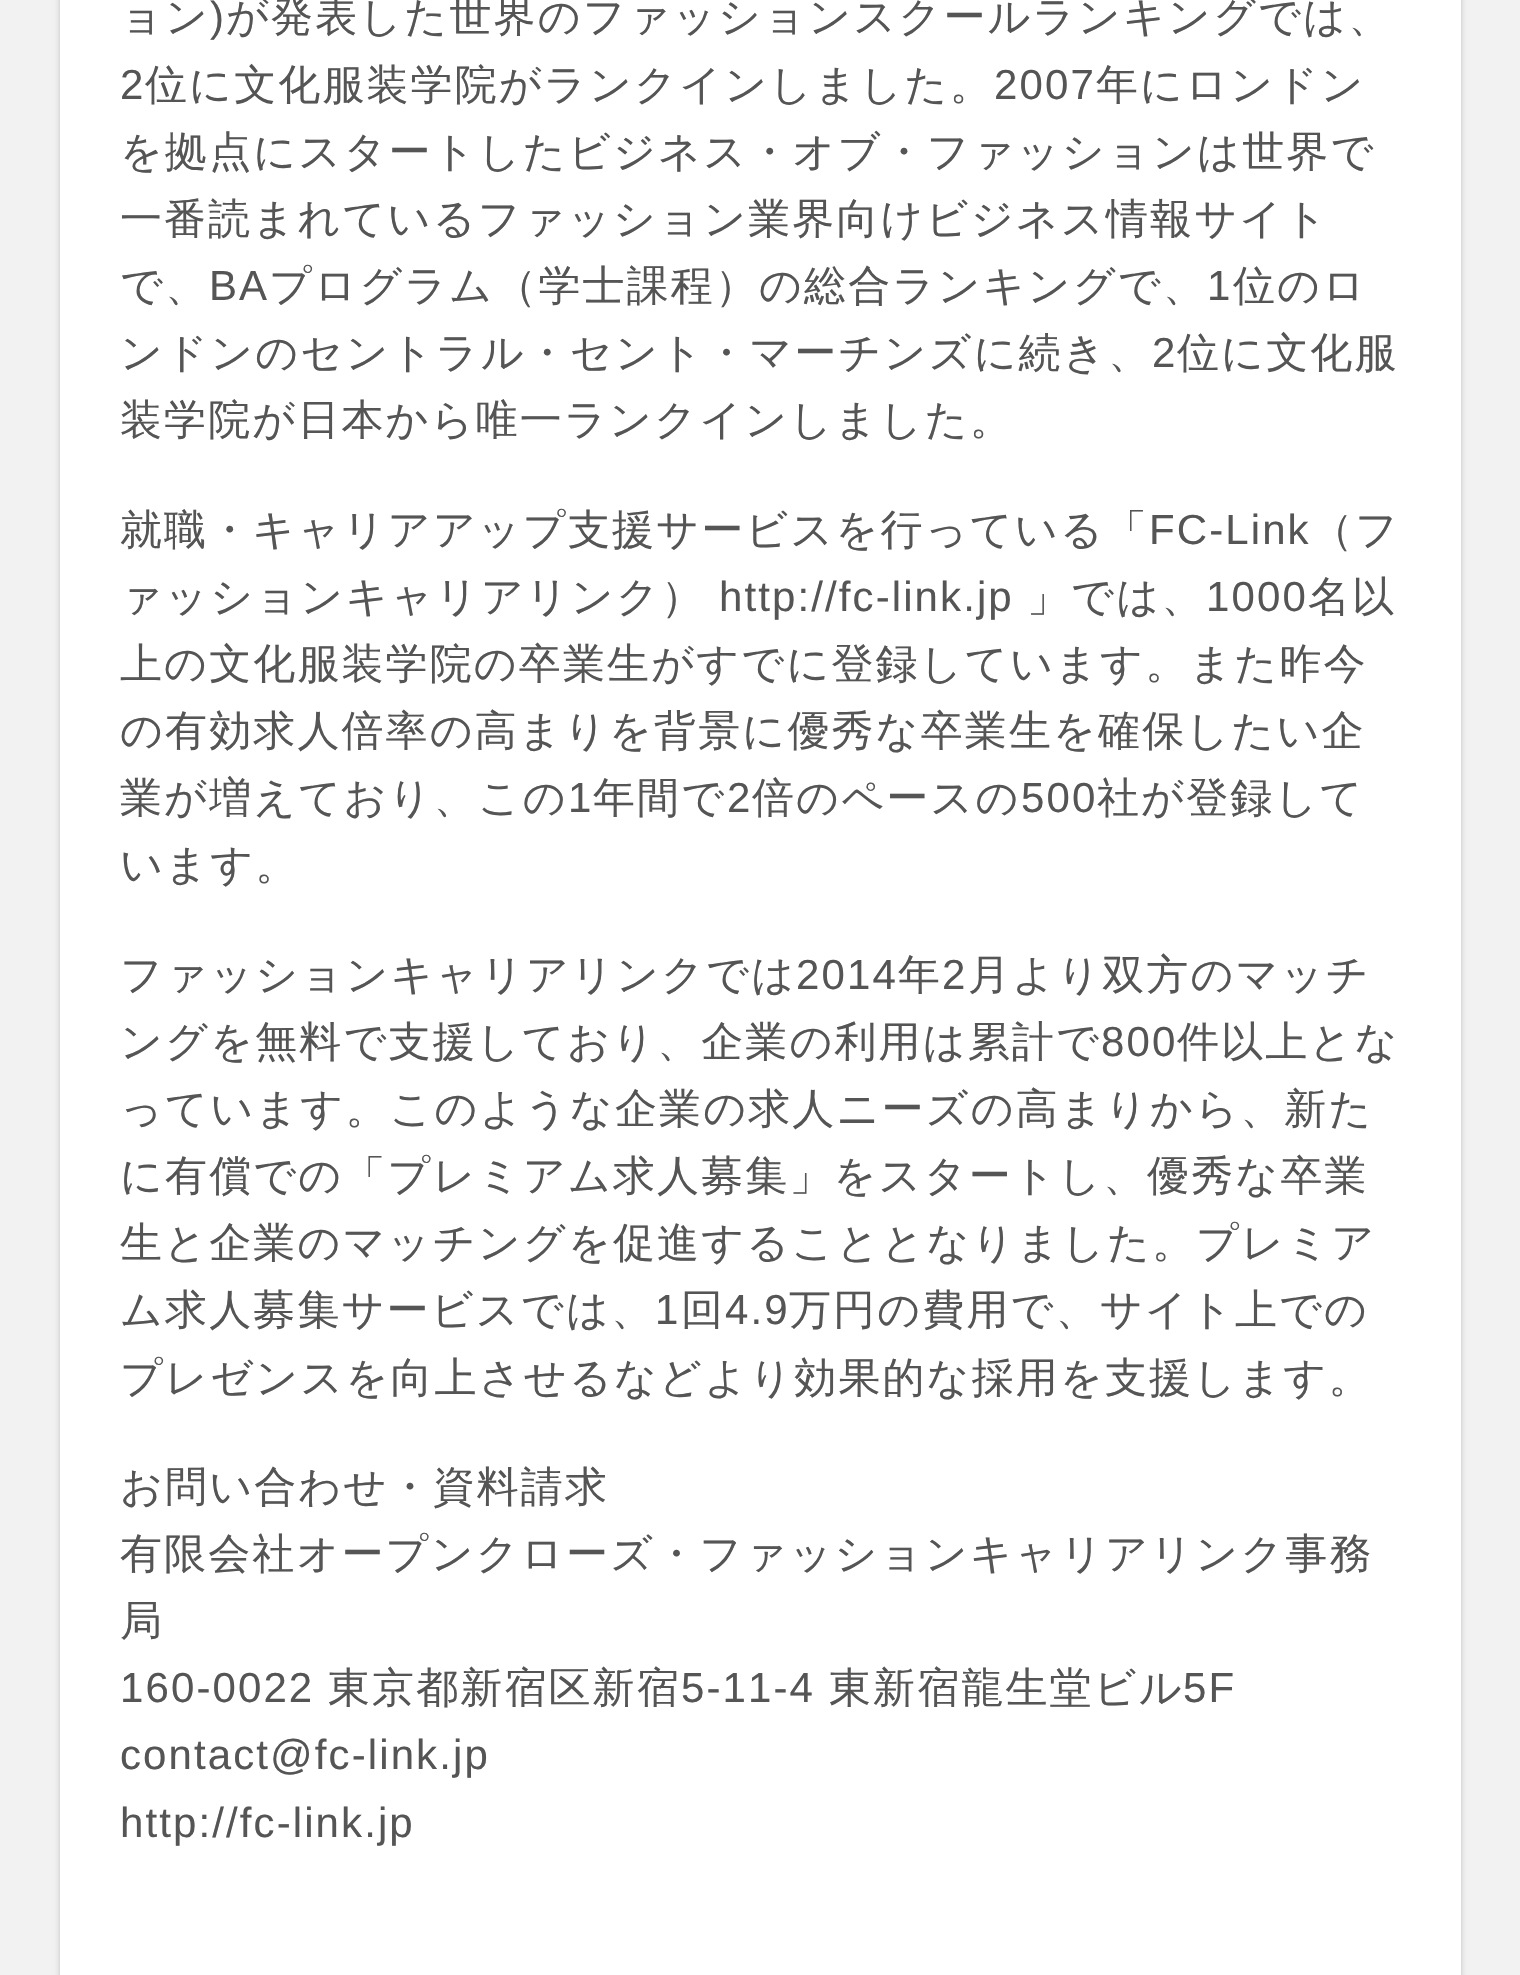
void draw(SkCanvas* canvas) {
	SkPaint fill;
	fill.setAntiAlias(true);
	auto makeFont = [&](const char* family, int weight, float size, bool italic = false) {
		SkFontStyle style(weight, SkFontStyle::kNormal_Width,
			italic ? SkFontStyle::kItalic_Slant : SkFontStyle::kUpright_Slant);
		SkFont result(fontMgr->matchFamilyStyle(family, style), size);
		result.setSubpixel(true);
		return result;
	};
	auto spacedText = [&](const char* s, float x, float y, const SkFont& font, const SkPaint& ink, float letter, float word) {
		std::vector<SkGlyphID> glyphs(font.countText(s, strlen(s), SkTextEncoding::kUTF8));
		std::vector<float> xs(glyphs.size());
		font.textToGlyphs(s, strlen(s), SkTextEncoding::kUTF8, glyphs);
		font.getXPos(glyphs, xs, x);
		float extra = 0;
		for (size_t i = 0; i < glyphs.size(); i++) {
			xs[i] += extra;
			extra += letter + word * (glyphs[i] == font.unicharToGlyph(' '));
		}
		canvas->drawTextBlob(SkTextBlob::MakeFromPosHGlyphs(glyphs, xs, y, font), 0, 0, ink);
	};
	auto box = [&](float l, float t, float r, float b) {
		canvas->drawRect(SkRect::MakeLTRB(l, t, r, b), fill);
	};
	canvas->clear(0xFFF2F2F2);
	fill.setColor(0x33000000);
	fill.setMaskFilter(SkMaskFilter::MakeBlur(kNormal_SkBlurStyle, 3));
	canvas->drawRect(SkRect::MakeLTRB(60, -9, 1461, 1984), fill);
	fill.setMaskFilter(nullptr);
	fill.setColor(0xFFFFFFFF);
	box(60, 0, 1461, 1975);
	auto font1 = makeFont("WenQuanYi Zen Hei", 500, 42);
	fill.setColor(0xFF555555);
	spacedText("ョン", 120, 31, font1, fill, 2.1f, 0);
	auto font2 = makeFont("Liberation Sans", 400, 42);
	spacedText(")", 210, 31, font2, fill, 2.1f, 0);
	spacedText("が発表した世界のファッションスクールランキングでは、", 226, 31, font1, fill, 2.1f, 0);
	spacedText("2", 120, 99, font2, fill, 2.1f, 0);
	spacedText("位に文化服装学院がランクインしました。", 145, 99, font1, fill, 2.1f, 0);
	spacedText("2007", 994, 99, font2, fill, 2.1f, 0);
	spacedText("年にロンドン", 1096, 99, font1, fill, 2.1f, 0);
	spacedText("を拠点にスタートしたビジネス・オブ・ファッションは世界で", 120, 166, font1, fill, 2.1f, 0);
	spacedText("一番読まれているファッション業界向けビジネス情報サイト", 120, 233, font1, fill, 2.1f, 0);
	spacedText("で、", 120, 300, font1, fill, 2.1f, 0);
	spacedText("BA", 209, 300, font2, fill, 2.1f, 0);
	spacedText("プログラム（学士課程）の総合ランキングで、", 269, 300, font1, fill, 2.1f, 0);
	spacedText("1", 1207, 300, font2, fill, 2.1f, 0);
	spacedText("位のロ", 1233, 300, font1, fill, 2.1f, 0);
	spacedText("ンドンのセントラル・セント・マーチンズに続き、", 120, 367, font1, fill, 2.1f, 0);
	spacedText("2", 1152, 367, font2, fill, 2.1f, 0);
	spacedText("位に文化服", 1177, 367, font1, fill, 2.1f, 0);
	spacedText("装学院が日本から唯一ランクインしました。", 120, 434, font1, fill, 2.1f, 0);
	spacedText("就職・キャリアアップ支援サービスを行っている「", 120, 544, font1, fill, 2.1f, 0);
	spacedText("FC-Link", 1149, 544, font2, fill, 2.1f, 0);
	spacedText("（フ", 1311, 544, font1, fill, 2.1f, 0);
	spacedText("ァッションキャリアリンク）", 120, 611, font1, fill, 2.1f, 0);
	spacedText("http://fc-link.jp", 719, 611, font2, fill, 2.1f, 0);
	spacedText("」では、", 1027, 611, font1, fill, 2.1f, 0);
	spacedText("1000", 1206, 611, font2, fill, 2.1f, 0);
	spacedText("名以", 1308, 611, font1, fill, 2.1f, 0);
	spacedText("上の文化服装学院の卒業生がすでに登録しています。また昨今", 120, 678, font1, fill, 2.1f, 0);
	spacedText("の有効求人倍率の高まりを背景に優秀な卒業生を確保したい企", 120, 745, font1, fill, 2.1f, 0);
	spacedText("業が増えており、この", 120, 812, font1, fill, 2.1f, 0);
	spacedText("1", 568, 812, font2, fill, 2.1f, 0);
	spacedText("年間で", 593, 812, font1, fill, 2.1f, 0);
	spacedText("2", 727, 812, font2, fill, 2.1f, 0);
	spacedText("倍のペースの", 752, 812, font1, fill, 2.1f, 0);
	spacedText("500", 1021, 812, font2, fill, 2.1f, 0);
	spacedText("社が登録して", 1097, 812, font1, fill, 2.1f, 0);
	spacedText("います。", 120, 879, font1, fill, 2.1f, 0);
	spacedText("ファッションキャリアリンクでは", 120, 989, font1, fill, 2.1f, 0);
	spacedText("2014", 796, 989, font2, fill, 2.1f, 0);
	spacedText("年", 898, 989, font1, fill, 2.1f, 0);
	spacedText("2", 942, 989, font2, fill, 2.1f, 0);
	spacedText("月より双方のマッチ", 968, 989, font1, fill, 2.1f, 0);
	spacedText("ングを無料で支援しており、企業の利用は累計で", 120, 1056, font1, fill, 2.1f, 0);
	spacedText("800", 1101, 1056, font2, fill, 2.1f, 0);
	spacedText("件以上とな", 1177, 1056, font1, fill, 2.1f, 0);
	spacedText("っています。このような企業の求人ニーズの高まりから、新た", 120, 1123, font1, fill, 2.1f, 0);
	spacedText("に有償での「プレミアム求人募集」をスタートし、優秀な卒業", 120, 1190, font1, fill, 2.1f, 0);
	spacedText("生と企業のマッチングを促進することとなりました。プレミア", 120, 1257, font1, fill, 2.1f, 0);
	spacedText("ム求人募集サービスでは、", 120, 1324, font1, fill, 2.1f, 0);
	spacedText("1", 655, 1324, font2, fill, 2.1f, 0);
	spacedText("回", 681, 1324, font1, fill, 2.1f, 0);
	spacedText("4.9", 725, 1324, font2, fill, 2.1f, 0);
	spacedText("万円の費用で、サイト上での", 789, 1324, font1, fill, 2.1f, 0);
	spacedText("プレゼンスを向上させるなどより効果的な採用を支援します。", 120, 1392, font1, fill, 2.1f, 0);
	spacedText("お問い合わせ・資料請求", 120, 1501, font1, fill, 2.1f, 0);
	spacedText("有限会社オープンクローズ・ファッションキャリアリンク事務", 120, 1568, font1, fill, 2.1f, 0);
	spacedText("局", 120, 1635, font1, fill, 2.1f, 0);
	spacedText("160-0022", 120, 1702, font2, fill, 2.1f, 0);
	spacedText("東京都新宿区新宿", 328, 1702, font1, fill, 2.1f, 0);
	spacedText("5-11-4", 681, 1702, font2, fill, 2.1f, 0);
	spacedText("東新宿龍生堂ビル", 829, 1702, font1, fill, 2.1f, 0);
	spacedText("5F", 1183, 1702, font2, fill, 2.1f, 0);
	spacedText("contact@fc-link.jp", 120, 1769, font2, fill, 2.1f, 0);
	spacedText("http://fc-link.jp", 120, 1837, font2, fill, 2.1f, 0);
}
